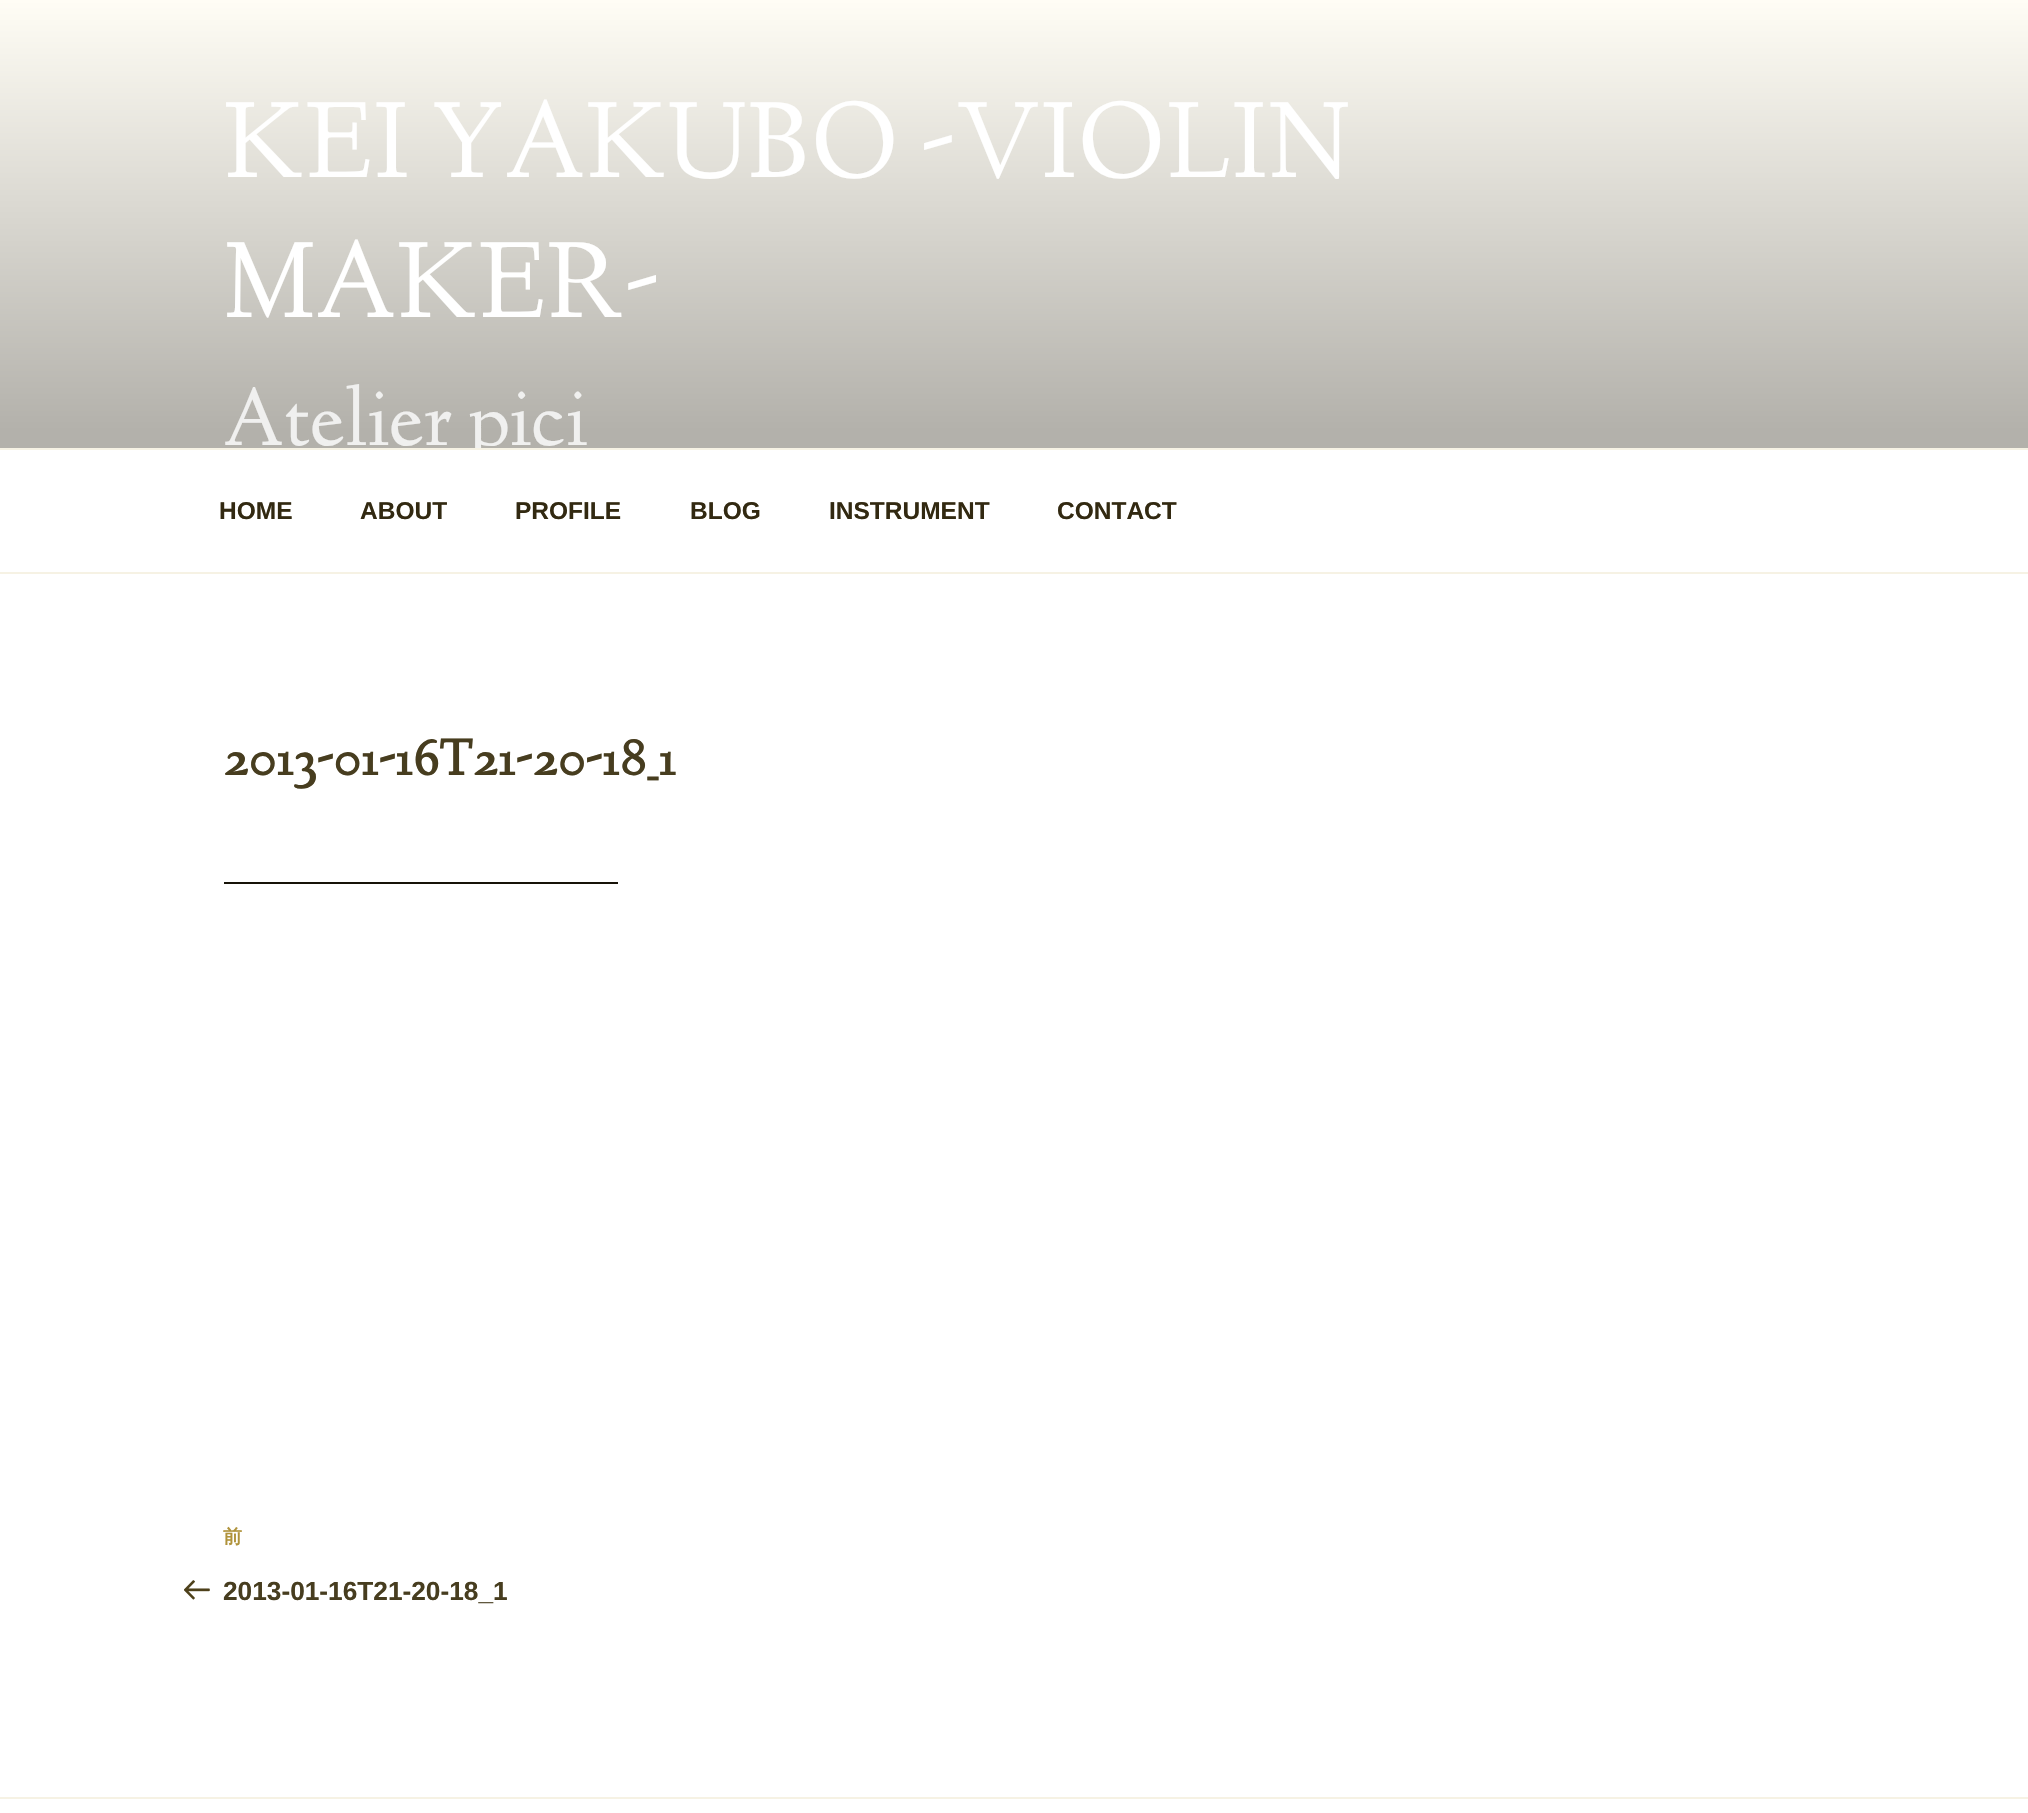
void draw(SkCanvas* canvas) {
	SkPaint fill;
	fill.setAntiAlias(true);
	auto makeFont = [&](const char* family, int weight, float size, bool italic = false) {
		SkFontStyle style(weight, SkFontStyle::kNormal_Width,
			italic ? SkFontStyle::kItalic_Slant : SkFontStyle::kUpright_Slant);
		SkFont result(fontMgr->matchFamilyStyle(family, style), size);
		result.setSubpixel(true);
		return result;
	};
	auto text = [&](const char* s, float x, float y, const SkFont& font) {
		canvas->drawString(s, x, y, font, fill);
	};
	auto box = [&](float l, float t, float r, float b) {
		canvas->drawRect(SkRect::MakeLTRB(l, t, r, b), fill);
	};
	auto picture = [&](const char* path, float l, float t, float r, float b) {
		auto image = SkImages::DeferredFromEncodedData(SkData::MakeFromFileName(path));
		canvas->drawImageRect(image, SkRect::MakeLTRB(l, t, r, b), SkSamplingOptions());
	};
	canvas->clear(0xFFFFFFFF);
	{
		const SkColor colors[] = {0xFFFFFDF5, 0xFFB3B1AB, 0xFFB3B1AB};
		const float stops[] = {0, 0.75f, 1};
		const SkPoint ends[] = {{1014, 0}, {1014, 574}};
		fill.setShader(SkGradientShader::MakeLinear(ends, colors, stops, 3, SkTileMode::kClamp));
		fill.setAlpha(255);
	}
	box(0, 0, 2028, 448);
	fill.setShader(nullptr);
	fill.setColor(0xFFF6F2E4);
	box(0, 572, 2028, 574);
	fill.setColor(0xFF171308);
	box(224, 882, 618, 884);
	picture("image0.png", 184, 1580, 210, 1600);
	fill.setColor(0xFFF6F2E4);
	box(0, 1797, 2028, 1799);
	auto font1 = makeFont("Linden Hill", 400, 112);
	fill.setColor(0xFFFFFFFF);
	text("KEI YAKUBO -VIOLIN", 223, 177, font1);
	text("MAKER-", 223, 317, font1);
	auto font2 = makeFont("Linden Hill", 400, 84);
	fill.setColor(0xFFF0F0EF);
	text("Atelier pici", 223, 445, font2);
	fill.setColor(0xFFFFFFFF);
	box(469, 450, 489, 467);
	fill.setColor(0xFFF6F2E4);
	box(0, 448, 2028, 450);
	auto font3 = makeFont("Liberation Sans", 700, 24.5f);
	fill.setColor(0xFF322911);
	text("HOME", 219, 519, font3);
	text("ABOUT", 360, 519, font3);
	text("PROFILE", 515, 519, font3);
	text("BLOG", 690, 519, font3);
	text("INSTRUMENT", 829, 519, font3);
	text("CONTACT", 1057, 519, font3);
	auto font4 = makeFont("Linden Hill", 700, 52.5f);
	fill.setColor(0xFF473D1F);
	text("2013-01-16T21-20-18_1", 223, 775, font4);
	auto font5 = makeFont("WenQuanYi Zen Hei", 700, 19);
	fill.setColor(0xFFB0933B);
	text("前", 223, 1543, font5);
	auto font6 = makeFont("Liberation Sans", 700, 26.25f);
	fill.setColor(0xFF473D1F);
	text("2013-01-16T21-20-18_1", 223, 1600, font6);
}
